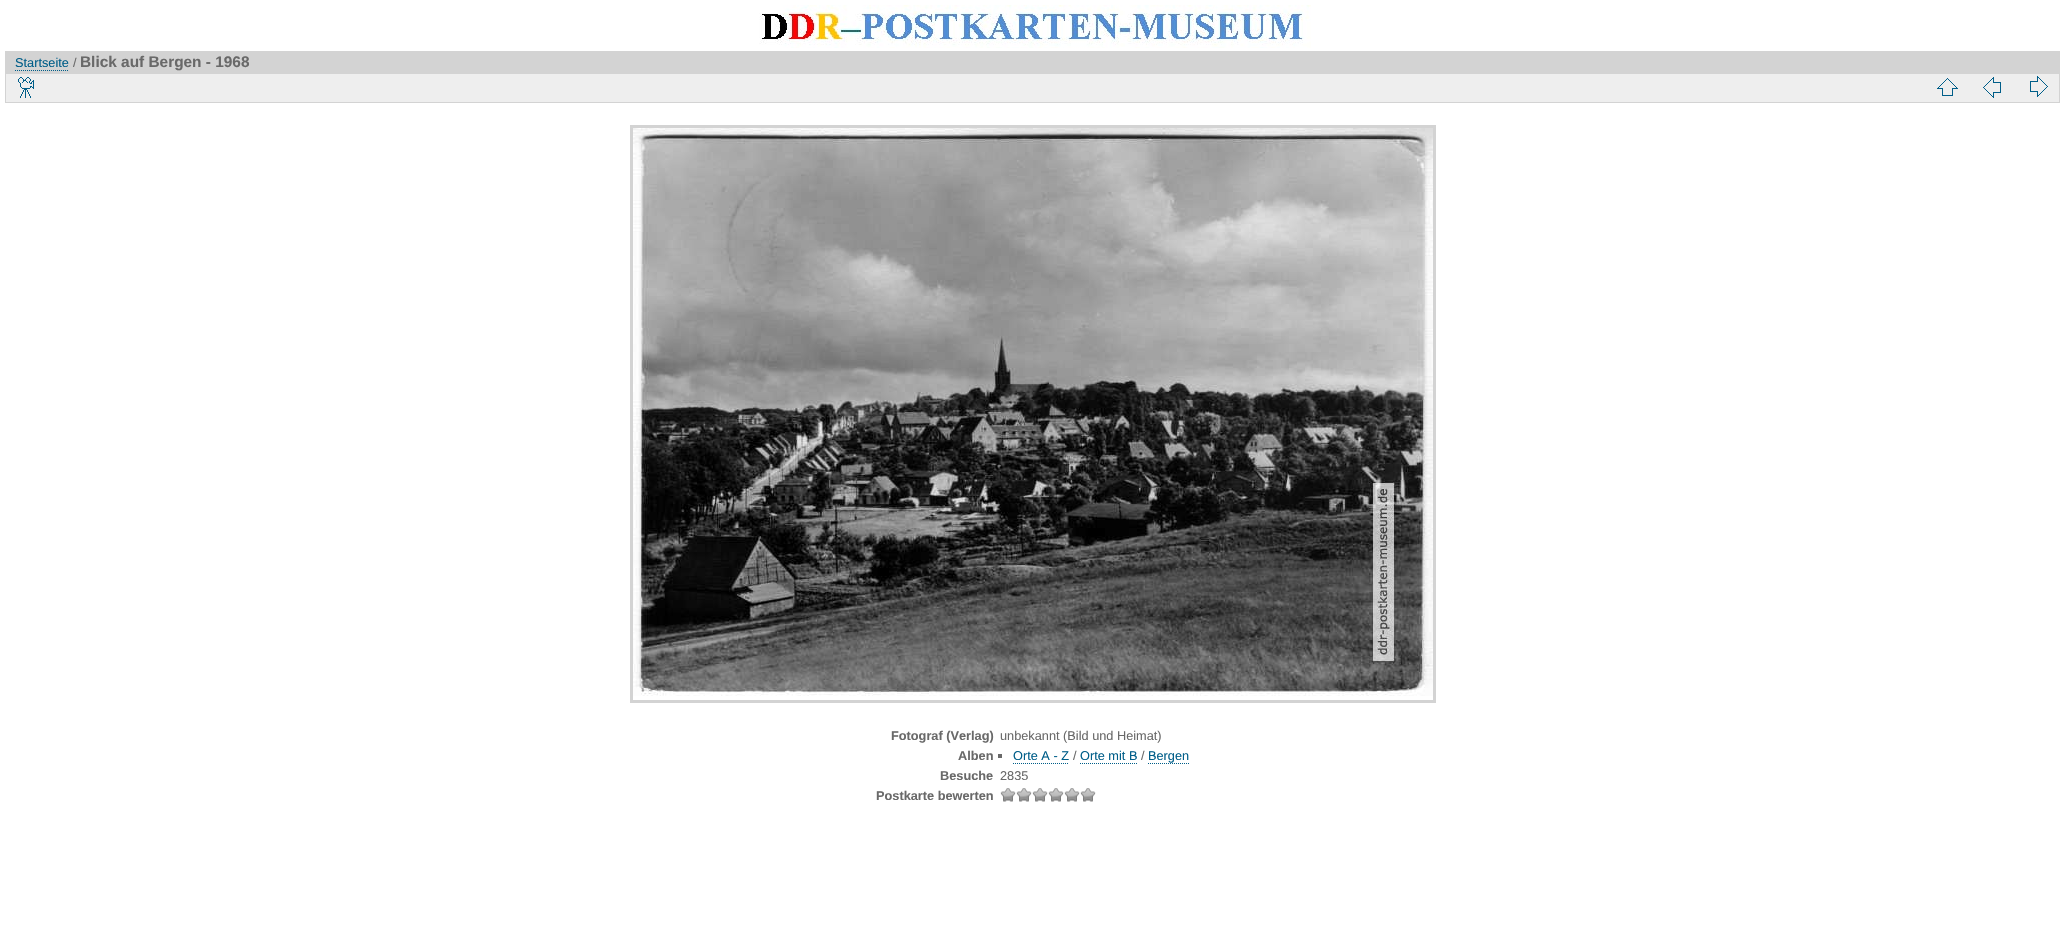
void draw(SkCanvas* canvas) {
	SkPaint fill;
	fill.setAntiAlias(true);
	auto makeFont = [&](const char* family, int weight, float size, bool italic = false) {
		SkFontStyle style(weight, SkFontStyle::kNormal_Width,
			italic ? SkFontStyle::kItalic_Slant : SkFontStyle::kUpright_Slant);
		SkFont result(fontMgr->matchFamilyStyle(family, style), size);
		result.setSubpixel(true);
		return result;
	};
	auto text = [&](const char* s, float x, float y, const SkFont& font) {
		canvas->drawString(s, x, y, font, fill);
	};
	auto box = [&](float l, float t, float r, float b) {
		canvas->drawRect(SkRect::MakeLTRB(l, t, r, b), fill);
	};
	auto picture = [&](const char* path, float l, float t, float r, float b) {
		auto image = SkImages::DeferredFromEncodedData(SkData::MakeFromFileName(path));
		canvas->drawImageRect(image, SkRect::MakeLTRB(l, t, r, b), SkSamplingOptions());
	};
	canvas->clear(0xFFFFFFFF);
	picture("image0.png", 759, 5, 1311, 48);
	fill.setColor(0xFFD3D3D3);
	box(5, 51, 2060, 73);
	fill.setStyle(SkPaint::kStroke_Style);
	fill.setStrokeWidth(1);
	fill.setColor(0xFF005E89);
	fill.setPathEffect(SkDashPathEffect::Make({{1, 1}}, 0));
	canvas->drawPath(SkPathBuilder().moveTo(15, 70.5f).lineTo(69, 70.5f).detach(), fill);
	fill.setPathEffect(nullptr);
	fill.setStyle(SkPaint::kFill_Style);
	fill.setColor(0xFFEEEEEE);
	canvas->drawRect(SkRect::MakeLTRB(5.5f, 73.5f, 2059.5f, 102.5f), fill);
	fill.setStyle(SkPaint::kStroke_Style);
	fill.setColor(0xFFD3D3D3);
	canvas->drawRect(SkRect::MakeLTRB(5.5f, 73.5f, 2059.5f, 102.5f), fill);
	picture("image1.png", 18, 77, 34, 98);
	picture("image2.png", 1937, 78, 1958, 96);
	picture("image3.png", 1983, 77, 2001, 98);
	picture("image4.png", 2030, 76, 2048, 97);
	fill.setStrokeWidth(3);
	canvas->drawRect(SkRect::MakeLTRB(631.5f, 126.5f, 1434.5f, 701.5f), fill);
	picture("image5.png", 633, 128, 1433, 696);
	fill.setStyle(SkPaint::kFill_Style);
	fill.setColor(0xFF696969);
	box(998, 754, 1002, 758);
	fill.setStyle(SkPaint::kStroke_Style);
	fill.setStrokeWidth(1);
	fill.setColor(0xFF005E89);
	fill.setPathEffect(SkDashPathEffect::Make({{1, 1}}, 0));
	canvas->drawPath(SkPathBuilder().moveTo(1013, 763.5f).lineTo(1069, 763.5f).detach(), fill);
	fill.setPathEffect(nullptr);
	fill.setPathEffect(SkDashPathEffect::Make({{1, 1}}, 0));
	canvas->drawPath(SkPathBuilder().moveTo(1080, 763.5f).lineTo(1137, 763.5f).detach(), fill);
	fill.setPathEffect(nullptr);
	fill.setPathEffect(SkDashPathEffect::Make({{1, 1}}, 0));
	canvas->drawPath(SkPathBuilder().moveTo(1148, 763.5f).lineTo(1189, 763.5f).detach(), fill);
	fill.setPathEffect(nullptr);
	picture("image6.png", 1000, 788, 1016, 802);
	picture("image6.png", 1016, 788, 1032, 802);
	picture("image6.png", 1032, 788, 1048, 802);
	picture("image6.png", 1048, 788, 1064, 802);
	picture("image6.png", 1064, 788, 1080, 802);
	picture("image6.png", 1080, 788, 1096, 802);
	auto font1 = makeFont("Liberation Sans", 400, 12.75f);
	fill.setStyle(SkPaint::kFill_Style);
	text("Startseite", 15, 67, font1);
	fill.setColor(0xFF696969);
	text("/", 73, 67, font1);
	auto font2 = makeFont("Liberation Sans", 700, 15.4f);
	text("Blick auf Bergen - 1968", 80, 67, font2);
	auto font3 = makeFont("Liberation Sans", 700, 12.75f);
	text("Fotograf (Verlag)", 891, 740, font3);
	text("unbekannt (Bild und Heimat)", 1000, 740, font1);
	text("Alben", 958, 760, font3);
	fill.setColor(0xFF005E89);
	text("Orte A - Z", 1013, 760, font1);
	fill.setColor(0xFF696969);
	text("/", 1073, 760, font1);
	fill.setColor(0xFF005E89);
	text("Orte mit B", 1080, 760, font1);
	fill.setColor(0xFF696969);
	text("/", 1141, 760, font1);
	fill.setColor(0xFF005E89);
	text("Bergen", 1148, 760, font1);
	fill.setColor(0xFF696969);
	text("Besuche", 940, 780, font3);
	text("2835", 1000, 780, font1);
	text("Postkarte bewerten", 876, 800, font3);
}
